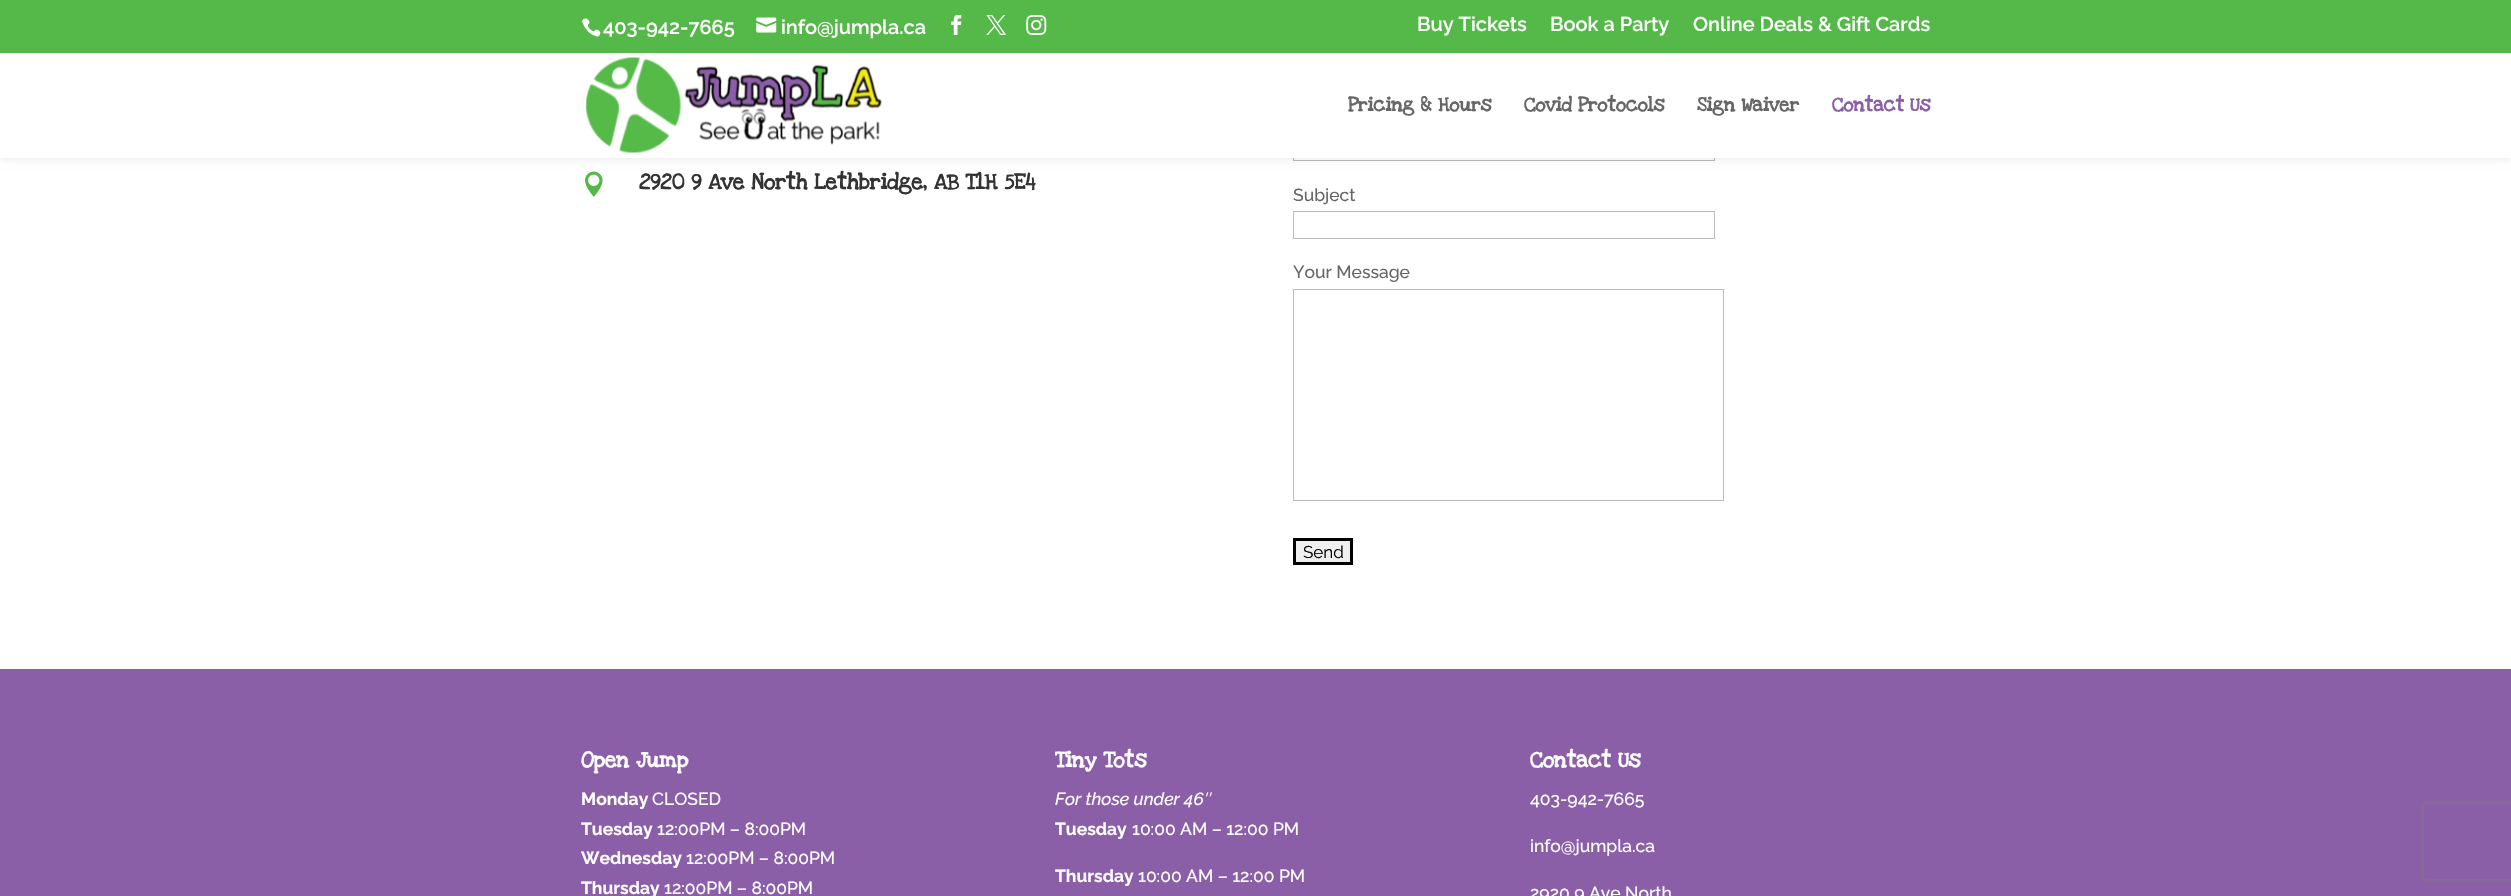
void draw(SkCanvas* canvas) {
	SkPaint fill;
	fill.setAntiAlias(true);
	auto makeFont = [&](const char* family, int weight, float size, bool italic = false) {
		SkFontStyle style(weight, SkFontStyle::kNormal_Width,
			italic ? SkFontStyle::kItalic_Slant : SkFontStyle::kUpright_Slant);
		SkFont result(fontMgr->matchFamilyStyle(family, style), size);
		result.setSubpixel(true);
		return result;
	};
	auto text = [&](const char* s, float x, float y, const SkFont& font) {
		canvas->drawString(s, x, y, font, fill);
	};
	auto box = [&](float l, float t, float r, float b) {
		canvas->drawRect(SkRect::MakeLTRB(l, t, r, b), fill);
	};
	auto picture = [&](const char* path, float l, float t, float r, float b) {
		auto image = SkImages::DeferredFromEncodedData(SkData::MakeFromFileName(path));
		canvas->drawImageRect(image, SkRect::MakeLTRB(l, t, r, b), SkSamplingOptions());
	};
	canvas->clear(0xFF8B5EA8);
	fill.setColor(0xFFFFFFFF);
	box(0, 158, 2511, 669);
	picture("image6.png", 585, 171, 603, 197);
	fill.setStyle(SkPaint::kStroke_Style);
	fill.setStrokeWidth(1);
	fill.setColor(0xFFBBBBBB);
	canvas->drawRect(SkRect::MakeLTRB(1293.5f, 134.5f, 1714.5f, 160.5f), fill);
	fill.setStyle(SkPaint::kFill_Style);
	fill.setColor(0x1A000000);
	fill.setMaskFilter(SkMaskFilter::MakeBlur(kNormal_SkBlurStyle, 4.5f));
	canvas->drawRect(SkRect::MakeLTRB(0, 53, 2511, 158), fill);
	fill.setMaskFilter(nullptr);
	fill.setColor(0xFF54B948);
	box(0, 0, 2511, 53);
	picture("image0.png", 582, 18, 601, 37);
	picture("image1.png", 756, 17, 777, 33);
	picture("image2.png", 951, 15, 962, 35);
	picture("image3.png", 986, 15, 1007, 35);
	picture("image4.png", 1026, 15, 1047, 35);
	fill.setColor(0xFFFFFFFF);
	box(0, 53, 2511, 158);
	picture("image5.png", 586, 57, 882, 153);
	fill.setStyle(SkPaint::kStroke_Style);
	fill.setColor(0xFFBBBBBB);
	canvas->drawRect(SkRect::MakeLTRB(1293.5f, 211.5f, 1714.5f, 238.5f), fill);
	canvas->drawRect(SkRect::MakeLTRB(1293.5f, 289.5f, 1723.5f, 500.5f), fill);
	fill.setStyle(SkPaint::kFill_Style);
	fill.setColor(0xFFEFEFEF);
	canvas->drawRect(SkRect::MakeLTRB(1294.5f, 539.5f, 1351.5f, 563.5f), fill);
	fill.setStyle(SkPaint::kStroke_Style);
	fill.setStrokeWidth(3);
	fill.setColor(0xFF000000);
	canvas->drawRect(SkRect::MakeLTRB(1294.5f, 539.5f, 1351.5f, 563.5f), fill);
	canvas->save();
	canvas->clipPath(SkPathBuilder(SkPathFillType::kEvenOdd).moveTo(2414, 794).lineTo(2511, 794).lineTo(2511, 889).lineTo(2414, 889).close().moveTo(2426.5f, 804).lineTo(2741.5f, 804).cubicTo(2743, 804, 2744, 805, 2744, 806.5f).lineTo(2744, 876.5f).cubicTo(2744, 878, 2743, 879, 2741.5f, 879).lineTo(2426.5f, 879).cubicTo(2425, 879, 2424, 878, 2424, 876.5f).lineTo(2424, 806.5f).cubicTo(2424, 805, 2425, 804, 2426.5f, 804).close().detach(), true);
	fill.setStyle(SkPaint::kFill_Style);
	fill.setColor(0xFF808080);
	fill.setMaskFilter(SkMaskFilter::MakeBlur(kNormal_SkBlurStyle, 3));
	canvas->drawRoundRect(SkRect::MakeLTRB(2424, 804, 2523, 879), 2.5f, 2.5f, fill);
	fill.setMaskFilter(nullptr);
	canvas->restore();
	auto font1 = makeFont("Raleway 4", 100, 20);
	fill.setColor(0xFFFFFFFF);
	text("403-942-7665", 603, 34, font1);
	text("info@jumpla.ca", 781, 34, font1);
	text("Buy Tickets", 1417, 31, font1);
	text("Book a Party", 1550, 31, font1);
	text("Online Deals & Gift Cards", 1693, 31, font1);
	auto font2 = makeFont("Love Ya Like A Sister", 700, 20);
	fill.setColor(0xFF666666);
	text("Pricing & Hours", 1348, 111, font2);
	text("Covid Protocols", 1524, 111, font2);
	text("Sign Waiver", 1697, 111, font2);
	fill.setColor(0xFF8B5EA8);
	text("Contact Us", 1832, 111, font2);
	auto font3 = makeFont("Love Ya Like A Sister", 700, 22.5f);
	fill.setColor(0xFF333333);
	text("2920 9 Ave North Lethbridge, AB T1H 5E4", 639, 189, font3);
	auto font4 = makeFont("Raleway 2", 100, 17.5f);
	fill.setColor(0xFF666666);
	text("Subject", 1293, 201, font4);
	text("Your Message", 1293, 278, font4);
	auto font5 = makeFont("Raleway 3", 100, 17);
	fill.setColor(0xFF000000);
	text("Send", 1303, 558, font5);
	fill.setColor(0xFFFFFFFF);
	text("Open Jump", 581, 767, font3);
	auto font6 = makeFont("Raleway", 100, 17.5f);
	text("Monday", 581, 805, font6);
	text("CLOSED", 652, 805, font4);
	text("Tuesday", 581, 835, font6);
	text("12:00PM – 8:00PM", 657, 835, font4);
	text("Wednesday", 581, 864, font6);
	text("12:00PM – 8:00PM", 686, 864, font4);
	text("Thursday", 581, 894, font6);
	text("12:00PM – 8:00PM", 664, 894, font4);
	text("Tiny Tots", 1055, 767, font3);
	auto font7 = makeFont("Raleway", 100, 17.5f, true);
	text("For those under 46″", 1055, 805, font7);
	text("Tuesday", 1055, 835, font6);
	text("10:00 AM – 12:00 PM", 1132, 835, font4);
	text("Thursday", 1055, 882, font6);
	text("10:00 AM – 12:00 PM", 1138, 882, font4);
	text("Contact Us", 1530, 767, font3);
	text("403-942-7665", 1530, 805, font4);
	text("info@jumpla.ca", 1530, 852, font4);
	text("2920 9 Ave North", 1530, 899, font4);
}
